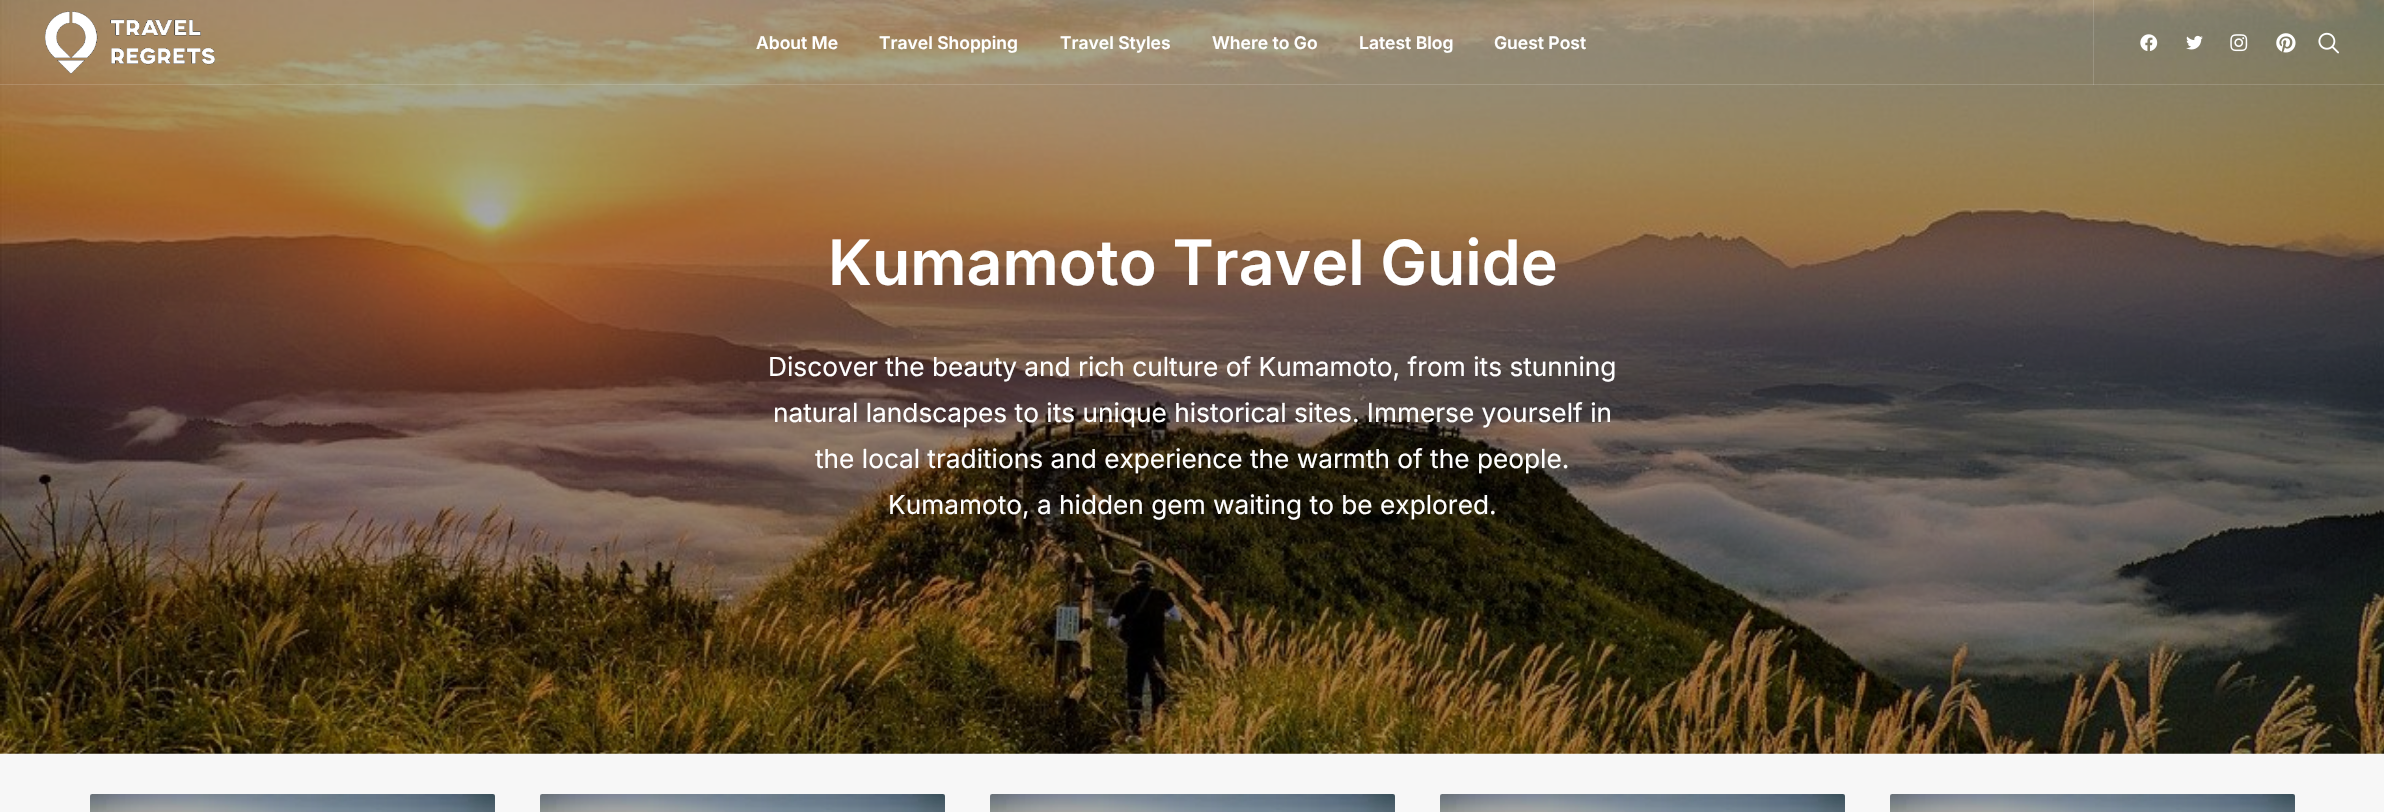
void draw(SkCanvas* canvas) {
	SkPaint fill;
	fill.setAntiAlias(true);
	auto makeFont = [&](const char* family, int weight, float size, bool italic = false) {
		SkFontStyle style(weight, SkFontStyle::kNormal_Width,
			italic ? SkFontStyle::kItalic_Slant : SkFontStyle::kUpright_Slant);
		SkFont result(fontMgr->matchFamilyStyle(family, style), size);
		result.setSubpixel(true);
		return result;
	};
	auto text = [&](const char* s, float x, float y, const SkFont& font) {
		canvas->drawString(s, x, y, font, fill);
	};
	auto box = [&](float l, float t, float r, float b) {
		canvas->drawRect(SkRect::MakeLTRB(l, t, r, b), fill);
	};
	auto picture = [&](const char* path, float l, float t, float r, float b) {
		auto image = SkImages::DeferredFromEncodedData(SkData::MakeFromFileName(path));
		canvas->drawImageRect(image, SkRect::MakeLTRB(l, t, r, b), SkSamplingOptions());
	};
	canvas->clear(0xFFFFFFFF);
	picture("image6.png", 0, 0, 2384, 754);
	picture("image0.png", 45, 11, 215, 74);
	fill.setColor(0x26FFFFFF);
	box(0, 84, 2384, 85);
	box(2093, 0, 2094, 85);
	picture("image1.png", 2140, 34, 2158, 51);
	picture("image2.png", 2186, 35, 2203, 50);
	picture("image3.png", 2230, 34, 2248, 52);
	picture("image4.png", 2276, 33, 2296, 53);
	picture("image5.png", 2318, 32, 2339, 54);
	fill.setColor(0xFFF7F7F7);
	box(0, 754, 2384, 812);
	picture("image7.png", 90, 794, 495, 812);
	picture("image8.png", 540, 794, 945, 812);
	picture("image9.png", 990, 794, 1395, 812);
	picture("image10.png", 1440, 794, 1845, 812);
	picture("image7.png", 1890, 794, 2295, 812);
	auto font1 = makeFont("Inter", 600, 17.5f);
	fill.setColor(0xFFFFFFFF);
	text("About Me", 756, 49, font1);
	text("Travel Shopping", 879, 49, font1);
	text("Travel Styles", 1060, 49, font1);
	text("Where to Go", 1212, 49, font1);
	text("Latest Blog", 1359, 49, font1);
	text("Guest Post", 1494, 49, font1);
	auto font2 = makeFont("Inter", 600, 62.5f);
	text("Kumamoto Travel Guide", 828, 285, font2);
	auto font3 = makeFont("Inter", 400, 26.25f);
	text("Discover the beauty and rich culture of Kumamoto, from its stunning", 768, 376, font3);
	text("natural landscapes to its unique historical sites. Immerse yourself in", 773, 422, font3);
	text("the local traditions and experience the warmth of the people.", 815, 468, font3);
	text("Kumamoto, a hidden gem waiting to be explored.", 888, 514, font3);
}
